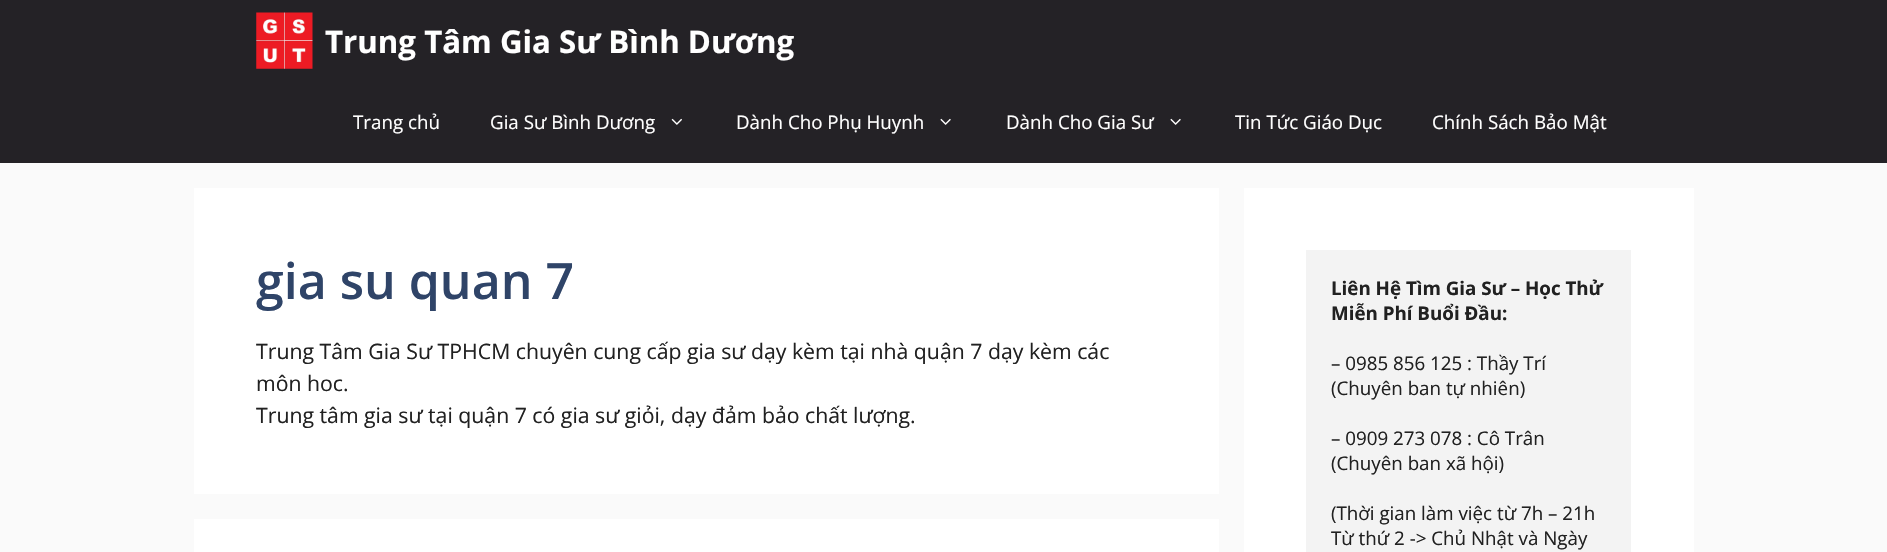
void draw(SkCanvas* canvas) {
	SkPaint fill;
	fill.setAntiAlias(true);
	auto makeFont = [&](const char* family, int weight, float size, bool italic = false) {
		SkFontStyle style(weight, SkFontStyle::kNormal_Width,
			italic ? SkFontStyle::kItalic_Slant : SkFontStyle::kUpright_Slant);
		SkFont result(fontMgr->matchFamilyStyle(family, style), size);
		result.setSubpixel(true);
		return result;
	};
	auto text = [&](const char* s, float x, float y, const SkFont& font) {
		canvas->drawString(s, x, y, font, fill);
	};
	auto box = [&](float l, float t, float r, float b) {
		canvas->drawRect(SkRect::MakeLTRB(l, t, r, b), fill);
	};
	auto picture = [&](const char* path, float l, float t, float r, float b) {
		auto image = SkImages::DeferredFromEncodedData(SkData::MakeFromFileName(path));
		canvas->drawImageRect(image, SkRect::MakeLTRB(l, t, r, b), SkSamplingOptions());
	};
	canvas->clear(0xFFFAFAFA);
	fill.setColor(0xFF242226);
	box(0, 0, 1887, 163);
	picture("image0.png", 256, 12, 313, 69);
	picture("image1.png", 671, 118, 682, 125);
	picture("image2.png", 940, 118, 951, 125);
	picture("image2.png", 1170, 118, 1181, 125);
	fill.setColor(0xFFFFFFFF);
	box(194, 188, 1219, 494);
	box(194, 519, 1219, 552);
	box(1244, 188, 1694, 552);
	fill.setColor(0xFFF3F3F3);
	box(1306, 250, 1631, 552);
	auto font1 = makeFont("Open Sans", 700, 31.25f);
	fill.setColor(0xFFFFFFFF);
	text("Trung Tâm Gia Sư Bình Dương", 325, 53, font1);
	auto font2 = makeFont("Open Sans", 400, 18.75f);
	text("Trang chủ", 353, 129, font2);
	text("Gia Sư Bình Dương", 490, 129, font2);
	text("Dành Cho Phụ Huynh", 736, 129, font2);
	text("Dành Cho Gia Sư", 1006, 129, font2);
	text("Tin Tức Giáo Dục", 1235, 129, font2);
	text("Chính Sách Bảo Mật", 1432, 129, font2);
	auto font3 = makeFont("Open Sans", 600, 50);
	fill.setColor(0xFF2F4468);
	text("gia su quan 7", 256, 299, font3);
	auto font4 = makeFont("Open Sans", 400, 21.25f);
	fill.setColor(0xFF212121);
	text("Trung Tâm Gia Sư TPHCM chuyên cung cấp gia sư dạy kèm tại nhà quận 7 dạy kèm các", 256, 359, font4);
	text("môn hoc.", 256, 391, font4);
	text("Trung tâm gia sư tại quận 7 có gia sư giỏi, dạy đảm bảo chất lượng.", 256, 423, font4);
	auto font5 = makeFont("Open Sans", 700, 18.75f);
	text("Liên Hệ Tìm Gia Sư – Học Thử", 1331, 295, font5);
	text("Miễn Phí Buổi Đầu:", 1331, 320, font5);
	text("– 0985 856 125 : Thầy Trí", 1331, 370, font2);
	text("(Chuyên ban tự nhiên)", 1331, 395, font2);
	text("– 0909 273 078 : Cô Trân", 1331, 445, font2);
	text("(Chuyên ban xã hội)", 1331, 470, font2);
	text("(Thời gian làm việc từ 7h – 21h", 1331, 520, font2);
	text("Từ thứ 2 -> Chủ Nhật và Ngày", 1331, 545, font2);
}
